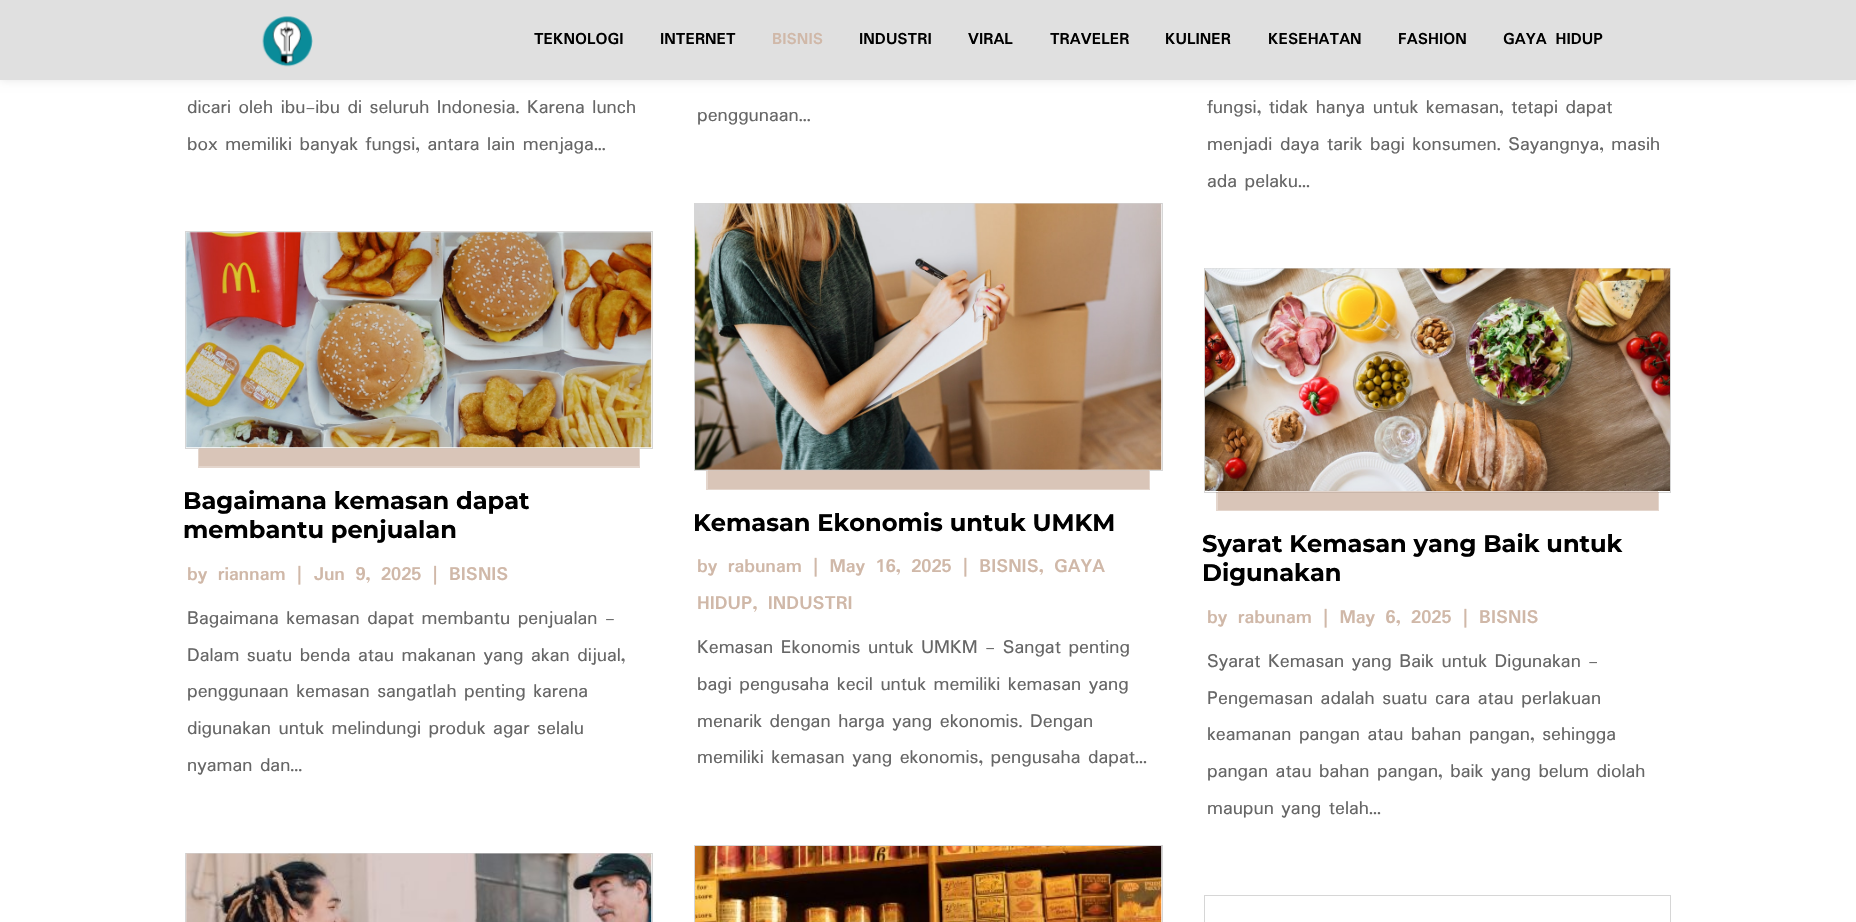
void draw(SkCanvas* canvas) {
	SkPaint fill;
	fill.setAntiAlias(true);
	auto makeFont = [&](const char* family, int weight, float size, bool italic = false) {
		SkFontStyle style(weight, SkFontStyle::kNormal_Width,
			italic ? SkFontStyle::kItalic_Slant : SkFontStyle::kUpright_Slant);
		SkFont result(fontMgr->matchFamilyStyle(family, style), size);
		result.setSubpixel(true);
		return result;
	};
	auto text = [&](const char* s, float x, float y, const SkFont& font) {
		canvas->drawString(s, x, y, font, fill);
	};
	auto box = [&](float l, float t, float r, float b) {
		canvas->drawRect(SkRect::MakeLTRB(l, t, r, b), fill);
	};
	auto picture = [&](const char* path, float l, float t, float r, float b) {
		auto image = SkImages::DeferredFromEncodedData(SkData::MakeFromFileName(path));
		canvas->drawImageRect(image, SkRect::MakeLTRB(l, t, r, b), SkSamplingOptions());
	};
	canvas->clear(0xFFFFFFFF);
	fill.setColor(0x1A000000);
	fill.setMaskFilter(SkMaskFilter::MakeBlur(kNormal_SkBlurStyle, 4.5f));
	canvas->drawRect(SkRect::MakeLTRB(0, 0, 1856, 80), fill);
	fill.setMaskFilter(nullptr);
	fill.setColor(0xFFE0E0E0);
	box(0, 0, 1856, 80);
	picture("image0.png", 262, 16, 313, 67);
	fill.setColor(0xFFE4D6CD);
	box(198, 449, 640, 468);
	fill.setStyle(SkPaint::kStroke_Style);
	fill.setStrokeWidth(1);
	fill.setColor(0xFFD6D6D6);
	canvas->drawRect(SkRect::MakeLTRB(185.5f, 231.5f, 652.5f, 448.5f), fill);
	picture("image1.png", 186, 232, 652, 448);
	fill.setStyle(SkPaint::kFill_Style);
	fill.setColor(0x94D0B8A8);
	box(199, 448, 639, 466);
	fill.setStyle(SkPaint::kStroke_Style);
	fill.setColor(0xFFD6D6D6);
	canvas->drawRect(SkRect::MakeLTRB(185.5f, 853.5f, 652.5f, 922.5f), fill);
	picture("image2.png", 186, 853, 652, 922);
	fill.setStyle(SkPaint::kFill_Style);
	fill.setColor(0xFFE4D6CD);
	box(706, 471, 1150, 490);
	fill.setStyle(SkPaint::kStroke_Style);
	fill.setColor(0xFFD6D6D6);
	canvas->drawRect(SkRect::MakeLTRB(694.5f, 203.5f, 1162.5f, 470.5f), fill);
	picture("image3.png", 695, 203, 1162, 470);
	fill.setStyle(SkPaint::kFill_Style);
	fill.setColor(0x94D0B8A8);
	box(708, 470, 1149, 489);
	fill.setStyle(SkPaint::kStroke_Style);
	fill.setColor(0xFFD6D6D6);
	canvas->drawRect(SkRect::MakeLTRB(694.5f, 845.5f, 1162.5f, 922.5f), fill);
	picture("image4.png", 695, 846, 1162, 922);
	fill.setStyle(SkPaint::kFill_Style);
	fill.setColor(0xFFE4D6CD);
	box(1216, 492, 1659, 511);
	fill.setStyle(SkPaint::kStroke_Style);
	fill.setColor(0x29000000);
	canvas->drawRect(SkRect::MakeLTRB(1204.5f, 268.5f, 1670.5f, 492.5f), fill);
	picture("image5.png", 1205, 268, 1670, 491);
	fill.setStyle(SkPaint::kFill_Style);
	fill.setColor(0x94D0B8A8);
	box(1218, 491, 1658, 510);
	fill.setStyle(SkPaint::kStroke_Style);
	fill.setColor(0xFFD6D6D6);
	canvas->drawRect(SkRect::MakeLTRB(1204.5f, 895.5f, 1670.5f, 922.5f), fill);
	auto font1 = makeFont("Padauk", 700, 17.5f);
	fill.setStyle(SkPaint::kFill_Style);
	fill.setColor(0xFF000000);
	text("TEKNOLOGI", 534, 44, font1);
	text("INTERNET", 660, 44, font1);
	fill.setColor(0xFFD0B8A8);
	text("BISNIS", 772, 44, font1);
	fill.setColor(0xFF000000);
	text("INDUSTRI", 859, 44, font1);
	text("VIRAL", 968, 44, font1);
	text("TRAVELER", 1050, 44, font1);
	text("KULINER", 1165, 44, font1);
	text("KESEHATAN", 1268, 44, font1);
	text("FASHION", 1398, 44, font1);
	text("GAYA HIDUP", 1503, 44, font1);
	auto font2 = makeFont("Padauk", 400, 20.4f);
	fill.setColor(0xFF666666);
	text("dicari oleh ibu-ibu di seluruh Indonesia. Karena lunch", 187, 113, font2);
	text("box memiliki banyak fungsi, antara lain menjaga...", 187, 150, font2);
	auto font3 = makeFont("Montserrat", 700, 24.1f);
	fill.setColor(0xFF000000);
	text("Bagaimana kemasan dapat", 183, 509, font3);
	text("membantu penjualan", 183, 538, font3);
	auto font4 = makeFont("Padauk", 700, 20.4f);
	fill.setColor(0xFFD0B8A8);
	text("by riannam | Jun 9, 2025 | BISNIS", 187, 580, font4);
	fill.setColor(0xFF666666);
	text("Bagaimana kemasan dapat membantu penjualan -", 187, 624, font2);
	text("Dalam suatu benda atau makanan yang akan dijual,", 187, 661, font2);
	text("penggunaan kemasan sangatlah penting karena", 187, 697, font2);
	text("digunakan untuk melindungi produk agar selalu", 187, 734, font2);
	text("nyaman dan...", 187, 771, font2);
	text("penggunaan...", 697, 121, font2);
	fill.setColor(0xFF000000);
	text("Kemasan Ekonomis untuk UMKM", 693, 531, font3);
	fill.setColor(0xFFD0B8A8);
	text("by rabunam | May 16, 2025 | BISNIS, GAYA", 697, 572, font4);
	text("HIDUP, INDUSTRI", 697, 609, font4);
	fill.setColor(0xFF666666);
	text("Kemasan Ekonomis untuk UMKM - Sangat penting", 697, 653, font2);
	text("bagi pengusaha kecil untuk memiliki kemasan yang", 697, 690, font2);
	text("menarik dengan harga yang ekonomis. Dengan", 697, 727, font2);
	text("memiliki kemasan yang ekonomis, pengusaha dapat...", 697, 763, font2);
	text("fungsi, tidak hanya untuk kemasan, tetapi dapat", 1207, 113, font2);
	text("menjadi daya tarik bagi konsumen. Sayangnya, masih", 1207, 150, font2);
	text("ada pelaku...", 1207, 187, font2);
	fill.setColor(0xFF000000);
	text("Syarat Kemasan yang Baik untuk", 1202, 552, font3);
	text("Digunakan", 1202, 581, font3);
	fill.setColor(0xFFD0B8A8);
	text("by rabunam | May 6, 2025 | BISNIS", 1207, 623, font4);
	fill.setColor(0xFF666666);
	text("Syarat Kemasan yang Baik untuk Digunakan -", 1207, 667, font2);
	text("Pengemasan adalah suatu cara atau perlakuan", 1207, 704, font2);
	text("keamanan pangan atau bahan pangan, sehingga", 1207, 740, font2);
	text("pangan atau bahan pangan, baik yang belum diolah", 1207, 777, font2);
	text("maupun yang telah...", 1207, 814, font2);
}
